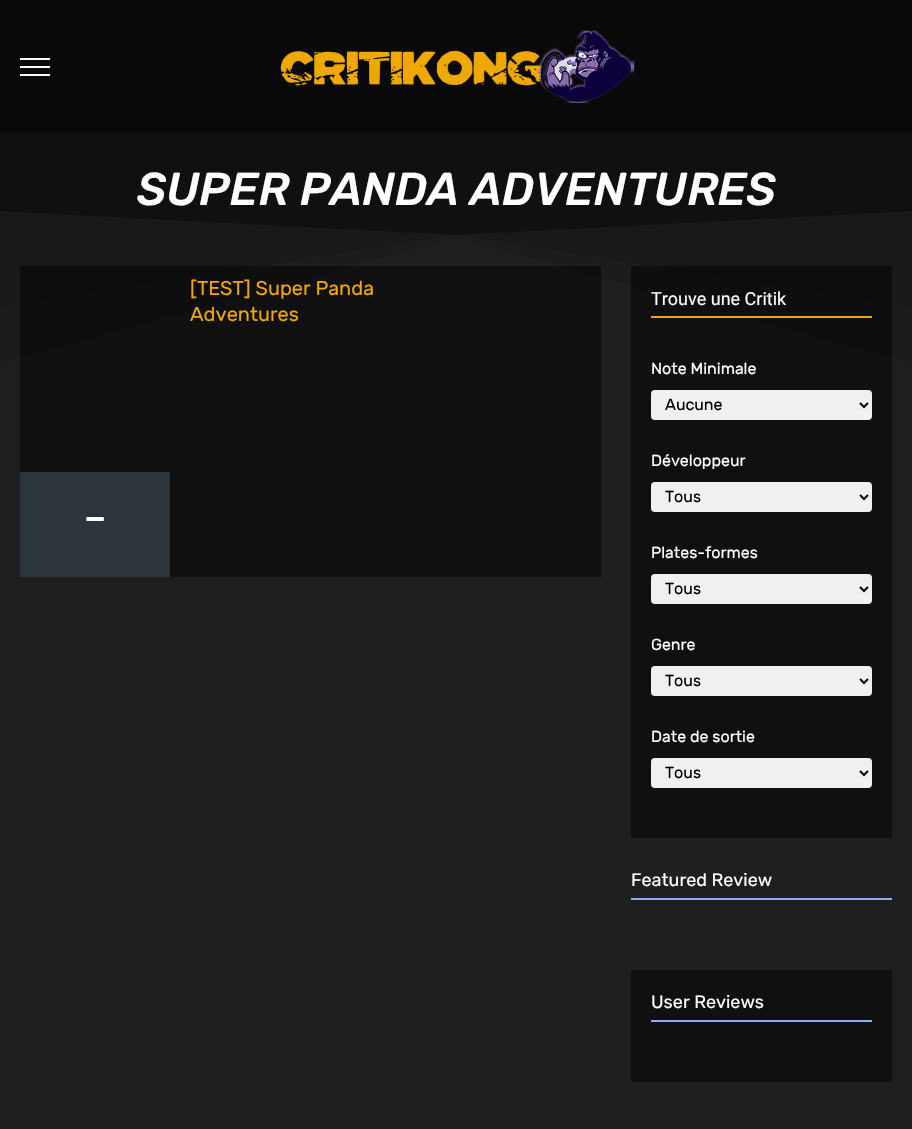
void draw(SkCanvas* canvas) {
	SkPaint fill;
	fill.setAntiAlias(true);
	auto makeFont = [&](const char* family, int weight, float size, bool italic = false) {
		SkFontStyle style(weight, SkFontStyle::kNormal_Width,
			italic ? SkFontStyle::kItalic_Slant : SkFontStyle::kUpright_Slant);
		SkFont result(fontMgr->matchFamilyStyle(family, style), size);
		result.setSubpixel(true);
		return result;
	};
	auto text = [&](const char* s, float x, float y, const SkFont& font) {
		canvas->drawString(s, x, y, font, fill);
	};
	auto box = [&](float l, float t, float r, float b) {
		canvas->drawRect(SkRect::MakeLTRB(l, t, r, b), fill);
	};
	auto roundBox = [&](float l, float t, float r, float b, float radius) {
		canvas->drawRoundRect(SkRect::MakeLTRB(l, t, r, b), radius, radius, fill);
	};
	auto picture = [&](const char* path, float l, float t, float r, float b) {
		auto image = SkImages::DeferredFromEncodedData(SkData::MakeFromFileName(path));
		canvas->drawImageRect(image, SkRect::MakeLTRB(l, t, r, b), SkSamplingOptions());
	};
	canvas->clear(0xFF1F1F1F);
	fill.setColor(0xFF090909);
	box(0, 0, 912, 133);
	fill.setColor(0xFFFFFFFF);
	box(20, 58, 50, 60);
	box(20, 66, 50, 68);
	box(20, 74, 50, 76);
	picture("image0.png", 280, 30, 635, 103);
	fill.setColor(0xFF1C1C1C);
	canvas->drawPath(SkPathBuilder().moveTo(-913, 133).lineTo(-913, 613).lineTo(456, 238).lineTo(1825, 613).lineTo(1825, 133).close().detach(), fill);
	fill.setColor(0xFF191919);
	canvas->drawPath(SkPathBuilder().moveTo(-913, 133).lineTo(-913, 454).lineTo(456, 235).lineTo(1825, 454).lineTo(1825, 133).close().detach(), fill);
	fill.setColor(0xFF101010);
	canvas->drawPath(SkPathBuilder().moveTo(-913, 133).lineTo(-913, 164).lineTo(456, 235).lineTo(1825, 164).lineTo(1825, 133).close().detach(), fill);
	fill.setColor(0x80000000);
	box(20, 266, 601, 577);
	fill.setColor(0xFF2B353B);
	box(20, 472, 170, 577);
	fill.setColor(0x80000000);
	box(631, 266, 892, 838);
	fill.setColor(0xFFF1A602);
	box(651, 316, 872, 318);
	fill.setColor(0xFFF0F0F0);
	roundBox(651, 390, 872, 420, 4);
	fill.setStyle(SkPaint::kStroke_Style);
	fill.setStrokeWidth(2);
	fill.setColor(0xFF000000);
	canvas->drawPath(SkPathBuilder().moveTo(860, 403).lineTo(864, 407).lineTo(868, 403).detach(), fill);
	fill.setStyle(SkPaint::kFill_Style);
	fill.setColor(0xFFF0F0F0);
	roundBox(651, 482, 872, 512, 4);
	fill.setStyle(SkPaint::kStroke_Style);
	fill.setColor(0xFF000000);
	canvas->drawPath(SkPathBuilder().moveTo(860, 495).lineTo(864, 499).lineTo(868, 495).detach(), fill);
	fill.setStyle(SkPaint::kFill_Style);
	fill.setColor(0xFFF0F0F0);
	roundBox(651, 574, 872, 604, 4);
	fill.setStyle(SkPaint::kStroke_Style);
	fill.setColor(0xFF000000);
	canvas->drawPath(SkPathBuilder().moveTo(860, 587).lineTo(864, 591).lineTo(868, 587).detach(), fill);
	fill.setStyle(SkPaint::kFill_Style);
	fill.setColor(0xFFF0F0F0);
	roundBox(651, 666, 872, 696, 4);
	fill.setStyle(SkPaint::kStroke_Style);
	fill.setColor(0xFF000000);
	canvas->drawPath(SkPathBuilder().moveTo(860, 679).lineTo(864, 683).lineTo(868, 679).detach(), fill);
	fill.setStyle(SkPaint::kFill_Style);
	fill.setColor(0xFFF0F0F0);
	roundBox(651, 758, 872, 788, 4);
	fill.setStyle(SkPaint::kStroke_Style);
	fill.setColor(0xFF000000);
	canvas->drawPath(SkPathBuilder().moveTo(860, 771).lineTo(864, 775).lineTo(868, 771).detach(), fill);
	fill.setStyle(SkPaint::kFill_Style);
	fill.setColor(0xFF8BAFFF);
	box(631, 898, 892, 900);
	fill.setColor(0xFF101010);
	box(631, 970, 892, 1082);
	fill.setColor(0xFF8BAFFF);
	box(651, 1020, 872, 1022);
	auto font1 = makeFont("Rubik", 500, 46, true);
	fill.setColor(0xFFFFFFFF);
	text("SUPER PANDA ADVENTURES", 137, 205, font1);
	auto font2 = makeFont("Rubik", 400, 20);
	fill.setColor(0xFFF1A602);
	text("[TEST] Super Panda", 190, 295, font2);
	text("Adventures", 190, 321, font2);
	auto font3 = makeFont("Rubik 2", 400, 50);
	fill.setColor(0xFFFFFFFF);
	text("-", 83, 534, font3);
	auto font4 = makeFont("Roboto", 400, 18);
	text("Trouve une Critik", 651, 305, font4);
	auto font5 = makeFont("Rubik", 400, 16);
	text("Note Minimale", 651, 374, font5);
	fill.setColor(0xFF000000);
	text("Aucune", 665, 410, font5);
	fill.setColor(0xFFFFFFFF);
	text("Développeur", 651, 466, font5);
	fill.setColor(0xFF000000);
	text("Tous", 665, 502, font5);
	fill.setColor(0xFFFFFFFF);
	text("Plates-formes", 651, 558, font5);
	fill.setColor(0xFF000000);
	text("Tous", 665, 594, font5);
	fill.setColor(0xFFFFFFFF);
	text("Genre", 651, 650, font5);
	fill.setColor(0xFF000000);
	text("Tous", 665, 686, font5);
	fill.setColor(0xFFFFFFFF);
	text("Date de sortie", 651, 742, font5);
	fill.setColor(0xFF000000);
	text("Tous", 665, 778, font5);
	auto font6 = makeFont("Rubik 2", 400, 18);
	fill.setColor(0xFFFFFFFF);
	text("Featured Review", 631, 886, font6);
	text("User Reviews", 651, 1008, font6);
}
